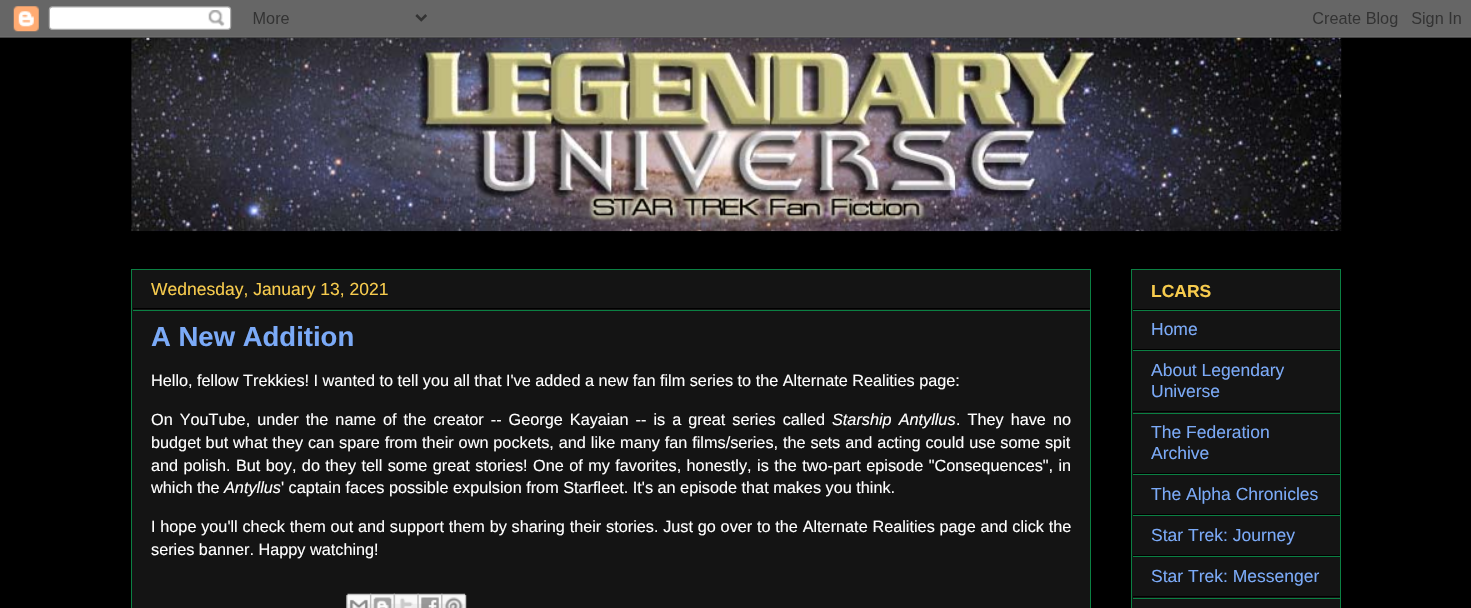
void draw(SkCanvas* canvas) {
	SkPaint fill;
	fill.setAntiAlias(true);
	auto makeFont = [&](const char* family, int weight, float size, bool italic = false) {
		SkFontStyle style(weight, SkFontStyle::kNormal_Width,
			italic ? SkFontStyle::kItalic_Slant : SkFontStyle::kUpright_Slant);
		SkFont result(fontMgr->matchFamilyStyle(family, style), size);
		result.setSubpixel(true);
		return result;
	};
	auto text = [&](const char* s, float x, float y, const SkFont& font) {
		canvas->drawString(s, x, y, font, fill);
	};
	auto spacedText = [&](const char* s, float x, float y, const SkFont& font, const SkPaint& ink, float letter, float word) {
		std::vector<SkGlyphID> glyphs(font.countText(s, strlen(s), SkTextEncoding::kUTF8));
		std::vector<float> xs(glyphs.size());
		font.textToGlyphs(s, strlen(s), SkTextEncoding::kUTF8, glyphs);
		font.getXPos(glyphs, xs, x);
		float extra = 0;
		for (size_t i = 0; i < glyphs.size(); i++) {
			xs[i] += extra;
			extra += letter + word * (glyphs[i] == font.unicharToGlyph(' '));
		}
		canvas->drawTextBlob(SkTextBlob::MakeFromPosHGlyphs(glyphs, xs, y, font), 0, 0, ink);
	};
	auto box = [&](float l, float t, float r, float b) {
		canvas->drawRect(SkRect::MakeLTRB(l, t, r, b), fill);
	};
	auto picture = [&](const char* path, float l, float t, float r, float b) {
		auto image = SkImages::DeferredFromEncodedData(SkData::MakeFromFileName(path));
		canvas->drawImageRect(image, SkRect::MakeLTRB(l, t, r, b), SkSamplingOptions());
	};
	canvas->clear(0xFF000000);
	picture("image1.png", 131, 37, 1342, 232);
	picture("image0.png", 0, 0, 1471, 38);
	fill.setColor(0xFF141414);
	canvas->drawRect(SkRect::MakeLTRB(131.5f, 269.5f, 1090.5f, 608.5f), fill);
	fill.setStyle(SkPaint::kStroke_Style);
	fill.setStrokeWidth(1);
	fill.setColor(0xFF0B8043);
	canvas->drawRect(SkRect::MakeLTRB(131.5f, 269.5f, 1090.5f, 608.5f), fill);
	fill.setStyle(SkPaint::kFill_Style);
	fill.setColor(0xFF000000);
	box(133, 308, 1090, 309);
	fill.setColor(0xFF0B8043);
	box(133, 310, 1090, 311);
	picture("image2.png", 346, 593, 372, 608);
	picture("image3.png", 370, 593, 395, 608);
	picture("image4.png", 393, 593, 419, 608);
	picture("image5.png", 417, 593, 443, 608);
	picture("image6.png", 441, 593, 467, 608);
	fill.setColor(0xFF141414);
	canvas->drawRect(SkRect::MakeLTRB(1131.5f, 269.5f, 1340.5f, 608.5f), fill);
	fill.setStyle(SkPaint::kStroke_Style);
	fill.setColor(0xFF0B8043);
	canvas->drawRect(SkRect::MakeLTRB(1131.5f, 269.5f, 1340.5f, 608.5f), fill);
	fill.setStyle(SkPaint::kFill_Style);
	fill.setColor(0xFF000000);
	box(1133, 309, 1340, 310);
	fill.setColor(0xFF0B8043);
	box(1133, 310, 1340, 311);
	fill.setColor(0xFF000000);
	box(1133, 349, 1340, 350);
	fill.setColor(0xFF0B8043);
	box(1133, 350, 1340, 351);
	fill.setColor(0xFF000000);
	box(1133, 411, 1340, 412);
	fill.setColor(0xFF0B8043);
	box(1133, 413, 1340, 414);
	fill.setColor(0xFF000000);
	box(1133, 473, 1340, 474);
	fill.setColor(0xFF0B8043);
	box(1133, 474, 1340, 475);
	fill.setColor(0xFF000000);
	box(1133, 514, 1340, 515);
	fill.setColor(0xFF0B8043);
	box(1133, 515, 1340, 516);
	fill.setColor(0xFF000000);
	box(1133, 555, 1340, 556);
	fill.setColor(0xFF0B8043);
	box(1133, 556, 1340, 557);
	fill.setColor(0xFF000000);
	box(1133, 596, 1340, 597);
	fill.setColor(0xFF0B8043);
	box(1133, 598, 1340, 599);
	auto font1 = makeFont("Liberation Sans", 400, 17.5f);
	fill.setColor(0xFFF7CB4D);
	text("Wednesday, January 13, 2021", 151, 295, font1);
	auto font2 = makeFont("Liberation Sans", 700, 27.5f);
	fill.setColor(0xFF7BAAF7);
	text("A New Addition", 151, 346, font2);
	auto font3 = makeFont("Liberation Sans", 400, 16.25f);
	fill.setColor(0xFFFFFFFF);
	text("Hello, fellow Trekkies! I wanted to tell you all that I've added a new fan film series to the Alternate Realities page:", 151, 386, font3);
	spacedText("On YouTube, under the name of the creator -- George Kayaian -- is a great series called", 151, 425, font3, fill, 0, 2.5f);
	auto font4 = makeFont("Liberation Sans", 400, 16.25f, true);
	spacedText("Starship Antyllus", 832, 425, font4, fill, 0, 2.5f);
	spacedText(". They have no", 956, 425, font3, fill, 0, 2.5f);
	spacedText("budget but what they can spare from their own pockets, and like many fan films/series, the sets and acting could use some spit", 151, 448, font3, fill, 0, 0.4f);
	spacedText("and polish. But boy, do they tell some great stories! One of my favorites, honestly, is the two-part episode \"Consequences\", in", 151, 471, font3, fill, 0, 0.9f);
	text("which the", 151, 493, font3);
	text("Antyllus", 224, 493, font4);
	text("' captain faces possible expulsion from Starfleet. It's an episode that makes you think.", 281, 493, font3);
	spacedText("I hope you'll check them out and support them by sharing their stories. Just go over to the Alternate Realities page and click the", 151, 532, font3, fill, 0, 0.25f);
	text("series banner. Happy watching!", 151, 555, font3);
	auto font5 = makeFont("Liberation Sans", 700, 17.5f);
	fill.setColor(0xFFF7CB4D);
	text("LCARS", 1151, 297, font5);
	fill.setColor(0xFF7BAAF7);
	text("Home", 1151, 335, font1);
	text("About Legendary", 1151, 376, font1);
	text("Universe", 1151, 397, font1);
	text("The Federation", 1151, 438, font1);
	text("Archive", 1151, 459, font1);
	text("The Alpha Chronicles", 1151, 500, font1);
	text("Star Trek: Journey", 1151, 541, font1);
	text("Star Trek: Messenger", 1151, 582, font1);
}
